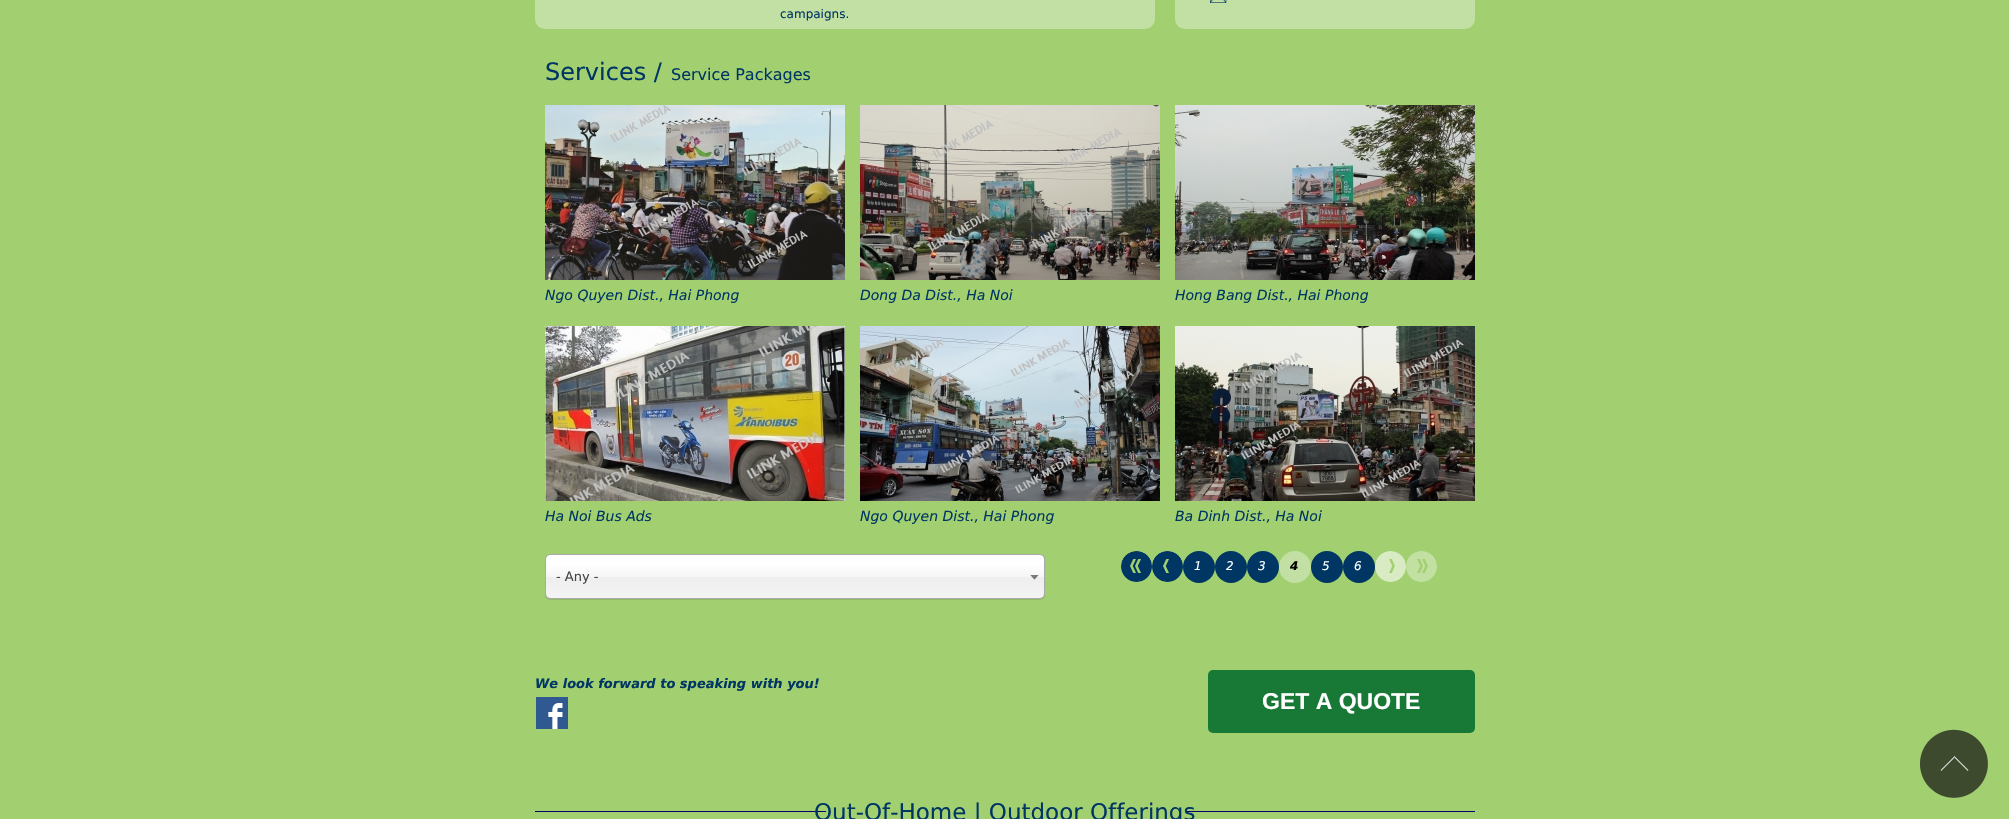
void draw(SkCanvas* canvas) {
	SkPaint fill;
	fill.setAntiAlias(true);
	auto makeFont = [&](const char* family, int weight, float size, bool italic = false) {
		SkFontStyle style(weight, SkFontStyle::kNormal_Width,
			italic ? SkFontStyle::kItalic_Slant : SkFontStyle::kUpright_Slant);
		SkFont result(fontMgr->matchFamilyStyle(family, style), size);
		result.setSubpixel(true);
		return result;
	};
	auto text = [&](const char* s, float x, float y, const SkFont& font) {
		canvas->drawString(s, x, y, font, fill);
	};
	auto roundBox = [&](float l, float t, float r, float b, float radius) {
		canvas->drawRoundRect(SkRect::MakeLTRB(l, t, r, b), radius, radius, fill);
	};
	auto picture = [&](const char* path, float l, float t, float r, float b) {
		auto image = SkImages::DeferredFromEncodedData(SkData::MakeFromFileName(path));
		canvas->drawImageRect(image, SkRect::MakeLTRB(l, t, r, b), SkSamplingOptions());
	};
	canvas->clear(0xFFA2D071);
	fill.setColor(0xFFC2E0A3);
	roundBox(535, -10, 1155, 29, 10);
	roundBox(1175, -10, 1475, 29, 10);
	picture("image0.png", 1210, 0, 1227, 3);
	picture("image1.png", 545, 105, 845, 280);
	picture("image2.png", 860, 105, 1160, 280);
	picture("image3.png", 1175, 105, 1475, 280);
	picture("image4.png", 545, 326, 845, 501);
	picture("image5.png", 860, 326, 1160, 501);
	picture("image6.png", 1175, 326, 1475, 501);
	picture("image7.png", 1121, 551, 1152, 582);
	picture("image8.png", 1152, 551, 1183, 582);
	fill.setColor(0xFF003663);
	canvas->drawCircle(1199, 567, 16, fill);
	canvas->drawCircle(1231, 567, 16, fill);
	canvas->drawCircle(1263, 567, 16, fill);
	fill.setColor(0xFFC2E0A3);
	canvas->drawCircle(1295, 567, 16, fill);
	fill.setColor(0xFF003663);
	canvas->drawCircle(1327, 567, 16, fill);
	canvas->drawCircle(1359, 567, 16, fill);
	picture("image9.png", 1375, 551, 1406, 582);
	picture("image10.png", 1406, 551, 1437, 582);
	fill.setColor(0x1A000000);
	fill.setMaskFilter(SkMaskFilter::MakeBlur(kNormal_SkBlurStyle, 0.5f));
	canvas->drawRoundRect(SkRect::MakeLTRB(545, 555, 1045, 600), 5, 5, fill);
	fill.setMaskFilter(nullptr);
	{
		const SkColor colors[] = {0xFFFFFFFF, 0xFFF6F6F6, 0xFFEEEEEE, 0xFFF4F4F4};
		const float stops[] = {0.2f, 0.5f, 0.52f, 1};
		const SkPoint ends[] = {{795, 555}, {795, 598}};
		fill.setShader(SkGradientShader::MakeLinear(ends, colors, stops, 4, SkTileMode::kClamp));
		fill.setAlpha(255);
	}
	roundBox(546, 555, 1044, 598, 4);
	fill.setStyle(SkPaint::kStroke_Style);
	fill.setStrokeWidth(1);
	fill.setShader(nullptr);
	fill.setColor(0xFFAAAAAA);
	canvas->drawRoundRect(SkRect::MakeLTRB(545.5f, 554.5f, 1044.5f, 598.5f), 4.5f, 4.5f, fill);
	picture("image11.png", 1030, 575, 1039, 580);
	picture("image12.png", 536, 697, 568, 729);
	fill.setStyle(SkPaint::kFill_Style);
	fill.setColor(0xFF177935);
	roundBox(1208, 670, 1475, 733, 5);
	picture("image13.png", 535, 811, 1475, 812);
	picture("image14.png", 1919, 729, 1988, 798);
	auto font1 = makeFont("DejaVu Sans", 400, 12);
	fill.setColor(0xFF003663);
	text("campaigns.", 780, 18, font1);
	auto font2 = makeFont("DejaVu Sans", 400, 24);
	text("Services /", 545, 80, font2);
	auto font3 = makeFont("DejaVu Sans", 400, 16);
	text("Service Packages", 671, 80, font3);
	auto font4 = makeFont("DejaVu Sans", 400, 14, true);
	text("Ngo Quyen Dist., Hai Phong", 545, 300, font4);
	text("Dong Da Dist., Ha Noi", 860, 300, font4);
	text("Hong Bang Dist., Hai Phong", 1175, 300, font4);
	text("Ha Noi Bus Ads", 545, 521, font4);
	text("Ngo Quyen Dist., Hai Phong", 860, 521, font4);
	text("Ba Dinh Dist., Ha Noi", 1175, 521, font4);
	auto font5 = makeFont("DejaVu Sans", 400, 12, true);
	fill.setColor(0xFFFFFFFF);
	text("1", 1194, 570, font5);
	text("2", 1226, 570, font5);
	text("3", 1258, 570, font5);
	auto font6 = makeFont("DejaVu Sans", 700, 12, true);
	fill.setColor(0xFF000000);
	text("4", 1290, 570, font6);
	fill.setColor(0xFFFFFFFF);
	text("5", 1322, 570, font5);
	text("6", 1354, 570, font5);
	auto font7 = makeFont("DejaVu Sans", 400, 13);
	fill.setColor(0xFF444444);
	text("- Any -", 556, 581, font7);
	auto font8 = makeFont("DejaVu Sans", 700, 13, true);
	fill.setColor(0xFF003663);
	text("We look forward to speaking with you!", 535, 688, font8);
	auto font9 = makeFont("Liberation Sans", 700, 23);
	fill.setColor(0xFFFFFFFF);
	text("GET A QUOTE", 1262, 709, font9);
	auto font10 = makeFont("DejaVu Sans", 400, 23);
	fill.setColor(0xFF003663);
	text("Out-Of-Home | Outdoor Offerings", 814, 820, font10);
}
